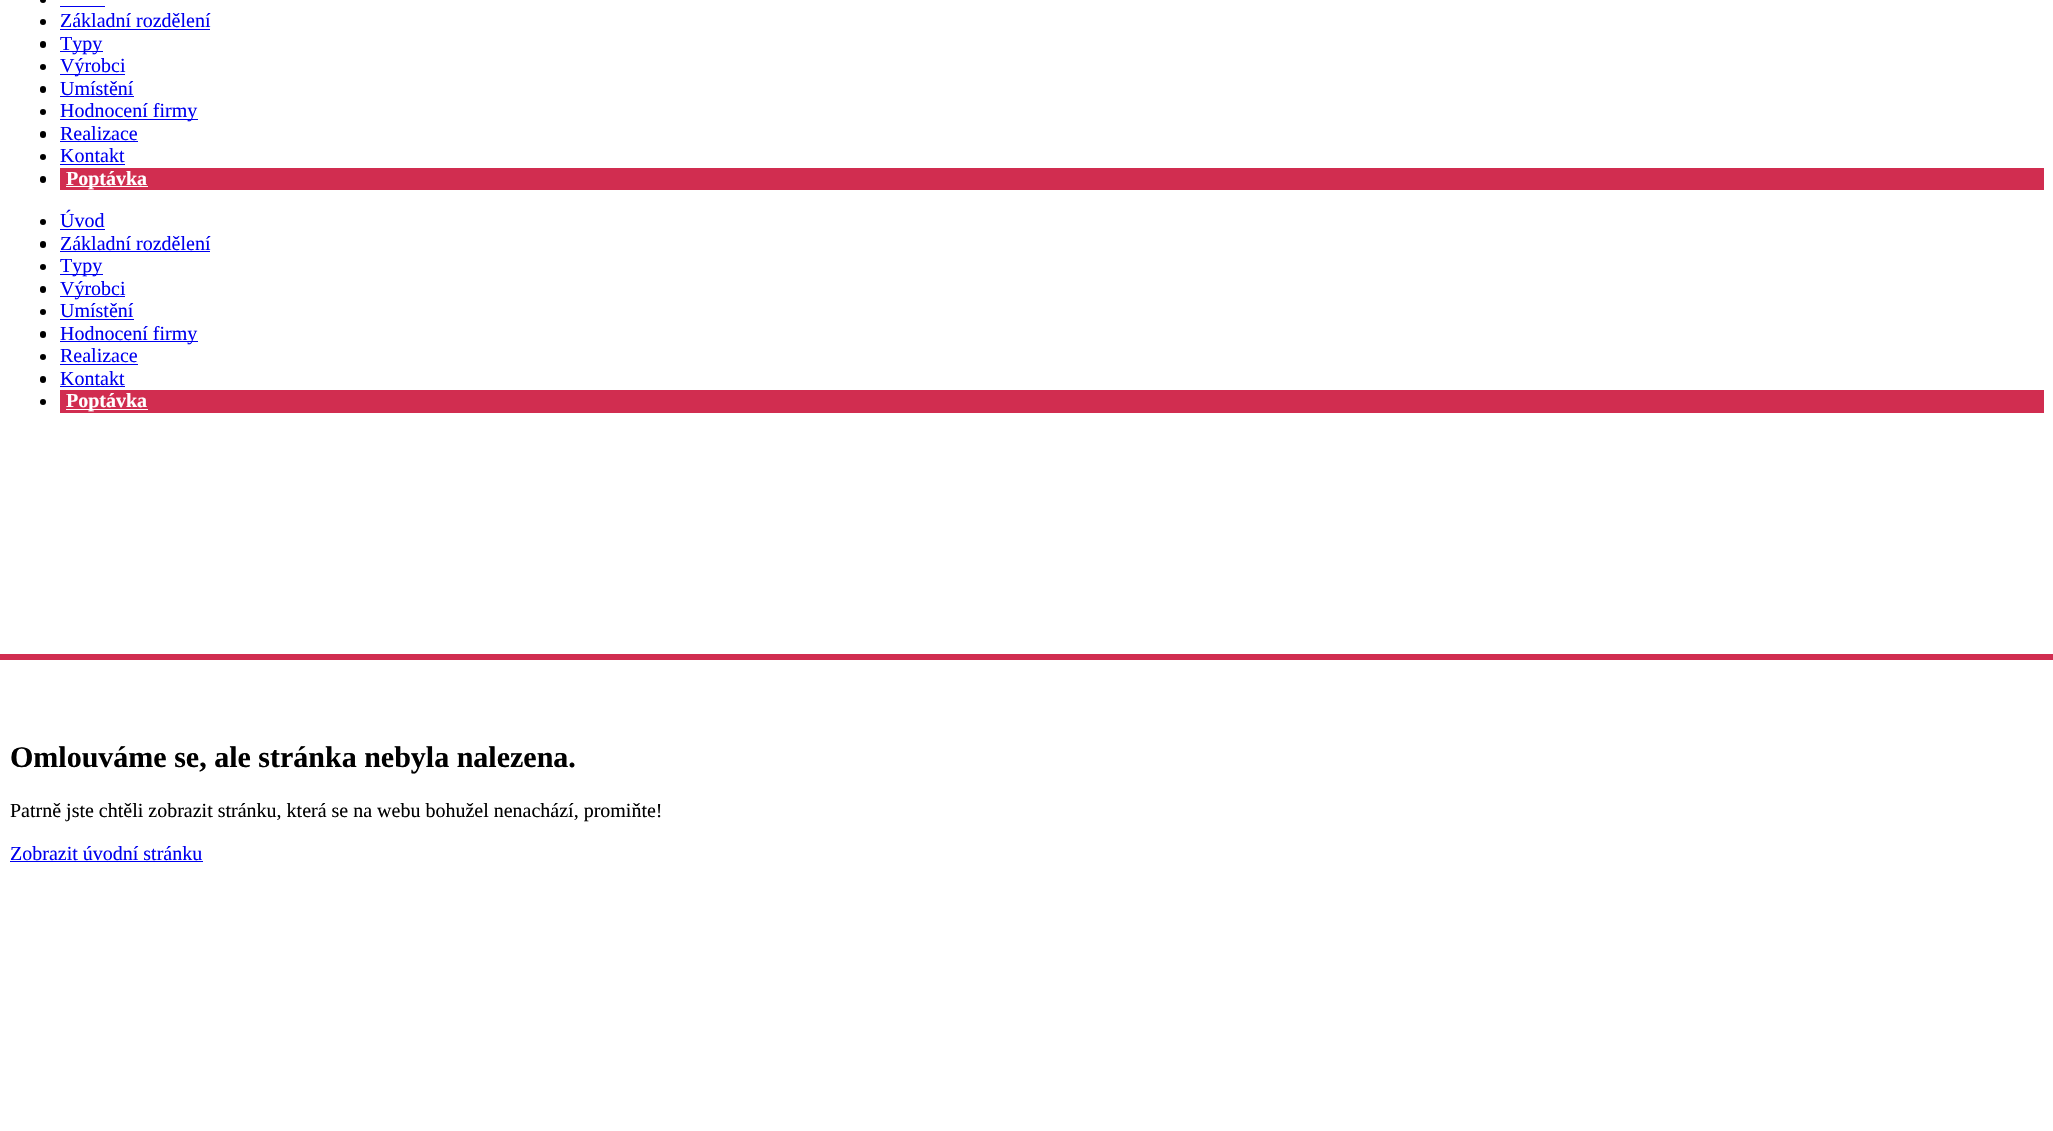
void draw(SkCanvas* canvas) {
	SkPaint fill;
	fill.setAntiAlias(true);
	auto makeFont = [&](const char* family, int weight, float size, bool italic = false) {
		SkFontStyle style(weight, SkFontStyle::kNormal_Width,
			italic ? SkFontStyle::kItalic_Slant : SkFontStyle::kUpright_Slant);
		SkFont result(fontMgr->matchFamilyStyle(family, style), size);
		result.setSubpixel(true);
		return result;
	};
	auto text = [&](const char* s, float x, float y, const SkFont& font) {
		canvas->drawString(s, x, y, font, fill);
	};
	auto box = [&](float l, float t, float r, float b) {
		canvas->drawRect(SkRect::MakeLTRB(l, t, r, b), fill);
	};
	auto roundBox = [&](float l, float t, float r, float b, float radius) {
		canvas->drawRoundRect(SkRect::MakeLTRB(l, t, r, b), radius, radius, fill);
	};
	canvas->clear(0xFFFFFFFF);
	fill.setColor(0xFF000000);
	canvas->drawCircle(43, 0, 3, fill);
	fill.setColor(0xFF0000EE);
	box(60, 6, 105, 7);
	fill.setColor(0xFF000000);
	canvas->drawCircle(43, 22, 3, fill);
	fill.setColor(0xFF0000EE);
	box(60, 29, 210, 30);
	fill.setColor(0xFF000000);
	roundBox(40, 41, 46, 48, 3);
	fill.setColor(0xFF0000EE);
	box(60, 51, 103, 52);
	fill.setColor(0xFF000000);
	canvas->drawCircle(43, 67, 3, fill);
	fill.setColor(0xFF0000EE);
	box(60, 74, 125, 75);
	fill.setColor(0xFF000000);
	roundBox(40, 86, 46, 93, 3);
	fill.setColor(0xFF0000EE);
	box(60, 96, 134, 97);
	fill.setColor(0xFF000000);
	canvas->drawCircle(43, 112, 3, fill);
	fill.setColor(0xFF0000EE);
	box(60, 119, 198, 120);
	fill.setColor(0xFF000000);
	roundBox(40, 131, 46, 138, 3);
	fill.setColor(0xFF0000EE);
	box(60, 141, 138, 142);
	fill.setColor(0xFF000000);
	canvas->drawCircle(43, 157, 3, fill);
	fill.setColor(0xFF0000EE);
	box(60, 164, 125, 165);
	fill.setColor(0xFFD12D50);
	box(60, 168, 2044, 190);
	fill.setColor(0xFF000000);
	roundBox(40, 176, 46, 183, 3);
	fill.setColor(0xFFFFFFFF);
	box(66, 186, 148, 187);
	fill.setColor(0xFF000000);
	canvas->drawCircle(43, 222, 3, fill);
	fill.setColor(0xFF0000EE);
	box(60, 229, 105, 230);
	fill.setColor(0xFF000000);
	roundBox(40, 241, 46, 248, 3);
	fill.setColor(0xFF0000EE);
	box(60, 251, 210, 252);
	fill.setColor(0xFF000000);
	canvas->drawCircle(43, 267, 3, fill);
	fill.setColor(0xFF0000EE);
	box(60, 274, 103, 275);
	fill.setColor(0xFF000000);
	roundBox(40, 286, 46, 293, 3);
	fill.setColor(0xFF0000EE);
	box(60, 296, 125, 297);
	fill.setColor(0xFF000000);
	canvas->drawCircle(43, 312, 3, fill);
	fill.setColor(0xFF0000EE);
	box(60, 319, 134, 320);
	fill.setColor(0xFF000000);
	roundBox(40, 331, 46, 338, 3);
	fill.setColor(0xFF0000EE);
	box(60, 341, 198, 342);
	fill.setColor(0xFF000000);
	canvas->drawCircle(43, 357, 3, fill);
	fill.setColor(0xFF0000EE);
	box(60, 364, 138, 365);
	fill.setColor(0xFF000000);
	roundBox(40, 376, 46, 383, 3);
	fill.setColor(0xFF0000EE);
	box(60, 386, 125, 387);
	fill.setColor(0xFFD12D50);
	box(60, 390, 2044, 413);
	fill.setColor(0xFF000000);
	canvas->drawCircle(43, 402, 3, fill);
	fill.setColor(0xFFFFFFFF);
	box(66, 409, 148, 410);
	fill.setColor(0xFFD12D50);
	box(0, 654, 2053, 660);
	fill.setColor(0xFF0000EE);
	box(10, 861, 203, 862);
	auto font1 = makeFont("Liberation Serif", 400, 20);
	text("Základní rozdělení", 60, 27, font1);
	text("Typy", 60, 50, font1);
	text("Výrobci", 60, 72, font1);
	text("Umístění", 60, 95, font1);
	text("Hodnocení firmy", 60, 117, font1);
	text("Realizace", 60, 140, font1);
	text("Kontakt", 60, 162, font1);
	auto font2 = makeFont("Liberation Serif", 700, 20);
	fill.setColor(0xFFFFFFFF);
	text("Poptávka", 66, 185, font2);
	fill.setColor(0xFF0000EE);
	text("Úvod", 60, 227, font1);
	text("Základní rozdělení", 60, 250, font1);
	text("Typy", 60, 272, font1);
	text("Výrobci", 60, 295, font1);
	text("Umístění", 60, 317, font1);
	text("Hodnocení firmy", 60, 340, font1);
	text("Realizace", 60, 362, font1);
	text("Kontakt", 60, 385, font1);
	fill.setColor(0xFFFFFFFF);
	text("Poptávka", 66, 407, font2);
	auto font3 = makeFont("Liberation Serif", 700, 30);
	fill.setColor(0xFF000000);
	text("Omlouváme se, ale stránka nebyla nalezena.", 10, 767, font3);
	text("Patrně jste chtěli zobrazit stránku, která se na webu bohužel nenachází, promiňte!", 10, 817, font1);
	fill.setColor(0xFF0000EE);
	text("Zobrazit úvodní stránku", 10, 860, font1);
}
